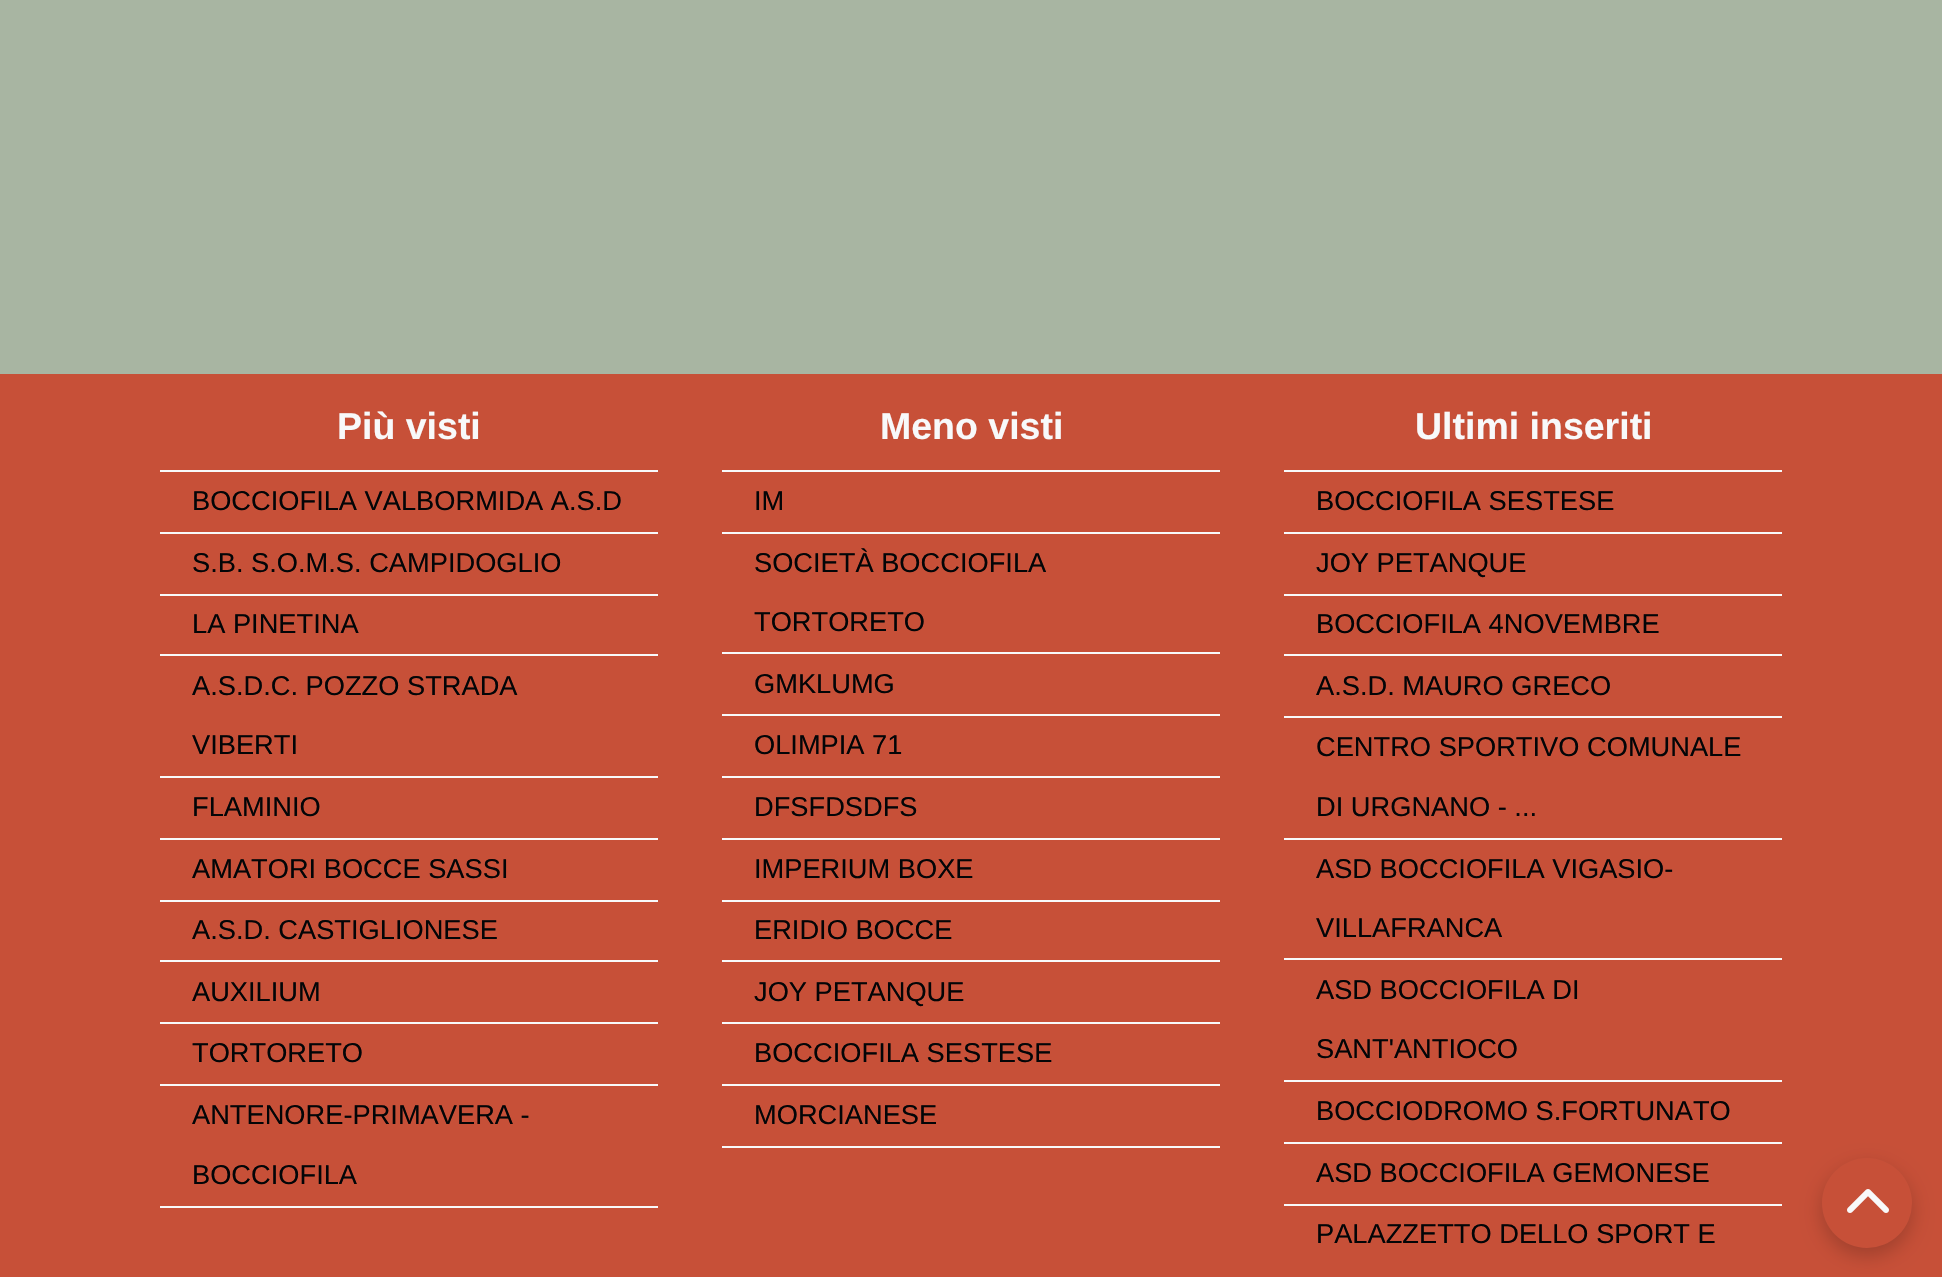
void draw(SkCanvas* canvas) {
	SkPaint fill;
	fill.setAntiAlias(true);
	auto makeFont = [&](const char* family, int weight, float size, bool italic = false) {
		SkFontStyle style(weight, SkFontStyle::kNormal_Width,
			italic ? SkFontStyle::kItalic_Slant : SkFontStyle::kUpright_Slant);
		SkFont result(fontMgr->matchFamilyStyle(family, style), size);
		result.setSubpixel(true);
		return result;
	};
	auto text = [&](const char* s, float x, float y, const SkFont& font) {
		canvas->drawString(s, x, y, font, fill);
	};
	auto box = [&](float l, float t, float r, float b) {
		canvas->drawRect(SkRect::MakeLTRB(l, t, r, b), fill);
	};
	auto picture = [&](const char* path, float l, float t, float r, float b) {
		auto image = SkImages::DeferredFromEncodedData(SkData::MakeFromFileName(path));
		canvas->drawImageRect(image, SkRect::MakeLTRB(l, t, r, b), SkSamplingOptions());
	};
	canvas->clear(0xFFA8B5A2);
	fill.setColor(0xFFC75038);
	box(0, 374, 1942, 1277);
	fill.setColor(0xFFF8F9FA);
	box(160, 470, 658, 472);
	box(160, 532, 658, 534);
	box(160, 594, 658, 596);
	box(160, 654, 658, 656);
	box(160, 776, 658, 778);
	box(160, 838, 658, 840);
	box(160, 900, 658, 902);
	box(160, 960, 658, 962);
	box(160, 1022, 658, 1024);
	box(160, 1084, 658, 1086);
	box(160, 1206, 658, 1208);
	box(722, 470, 1220, 472);
	box(722, 532, 1220, 534);
	box(722, 652, 1220, 654);
	box(722, 714, 1220, 716);
	box(722, 776, 1220, 778);
	box(722, 838, 1220, 840);
	box(722, 900, 1220, 902);
	box(722, 960, 1220, 962);
	box(722, 1022, 1220, 1024);
	box(722, 1084, 1220, 1086);
	box(722, 1146, 1220, 1148);
	box(1284, 470, 1782, 472);
	box(1284, 532, 1782, 534);
	box(1284, 594, 1782, 596);
	box(1284, 654, 1782, 656);
	box(1284, 716, 1782, 718);
	box(1284, 838, 1782, 840);
	box(1284, 958, 1782, 960);
	box(1284, 1080, 1782, 1082);
	box(1284, 1142, 1782, 1144);
	box(1284, 1204, 1782, 1206);
	fill.setColor(0x33000000);
	fill.setMaskFilter(SkMaskFilter::MakeBlur(kNormal_SkBlurStyle, 10));
	canvas->drawRoundRect(SkRect::MakeLTRB(1822, 1166, 1912, 1256), 45, 45, fill);
	fill.setMaskFilter(nullptr);
	fill.setColor(0xFFC75038);
	canvas->drawCircle(1867, 1203, 45, fill);
	picture("image0.png", 1847, 1189, 1889, 1213);
	auto font1 = makeFont("Liberation Sans", 700, 37.5f);
	fill.setColor(0xFFF8F9FA);
	text("Più visti", 337, 439, font1);
	auto font2 = makeFont("Liberation Sans", 400, 27.25f);
	fill.setColor(0xFF030507);
	text("BOCCIOFILA VALBORMIDA A.S.D", 192, 510, font2);
	text("S.B. S.O.M.S. CAMPIDOGLIO", 192, 572, font2);
	text("LA PINETINA", 192, 633, font2);
	text("A.S.D.C. POZZO STRADA", 192, 695, font2);
	text("VIBERTI", 192, 754, font2);
	text("FLAMINIO", 192, 816, font2);
	text("AMATORI BOCCE SASSI", 192, 878, font2);
	text("A.S.D. CASTIGLIONESE", 192, 939, font2);
	text("AUXILIUM", 192, 1001, font2);
	text("TORTORETO", 192, 1062, font2);
	text("ANTENORE-PRIMAVERA -", 192, 1124, font2);
	text("BOCCIOFILA", 192, 1184, font2);
	fill.setColor(0xFFF8F9FA);
	text("Meno visti", 880, 439, font1);
	fill.setColor(0xFF030507);
	text("IM", 754, 510, font2);
	text("SOCIETÀ BOCCIOFILA", 754, 572, font2);
	text("TORTORETO", 754, 631, font2);
	text("GMKLUMG", 754, 693, font2);
	text("OLIMPIA 71", 754, 754, font2);
	text("DFSFDSDFS", 754, 816, font2);
	text("IMPERIUM BOXE", 754, 878, font2);
	text("ERIDIO BOCCE", 754, 939, font2);
	text("JOY PETANQUE", 754, 1001, font2);
	text("BOCCIOFILA SESTESE", 754, 1062, font2);
	text("MORCIANESE", 754, 1124, font2);
	fill.setColor(0xFFF8F9FA);
	text("Ultimi inseriti", 1415, 439, font1);
	fill.setColor(0xFF030507);
	text("BOCCIOFILA SESTESE", 1316, 510, font2);
	text("JOY PETANQUE", 1316, 572, font2);
	text("BOCCIOFILA 4NOVEMBRE", 1316, 633, font2);
	text("A.S.D. MAURO GRECO", 1316, 695, font2);
	text("CENTRO SPORTIVO COMUNALE", 1316, 756, font2);
	text("DI URGNANO - ...", 1316, 816, font2);
	text("ASD BOCCIOFILA VIGASIO-", 1316, 878, font2);
	text("VILLAFRANCA", 1316, 937, font2);
	text("ASD BOCCIOFILA DI", 1316, 999, font2);
	text("SANT'ANTIOCO", 1316, 1058, font2);
	text("BOCCIODROMO S.FORTUNATO", 1316, 1120, font2);
	text("ASD BOCCIOFILA GEMONESE", 1316, 1182, font2);
	text("PALAZZETTO DELLO SPORT E", 1316, 1243, font2);
}
